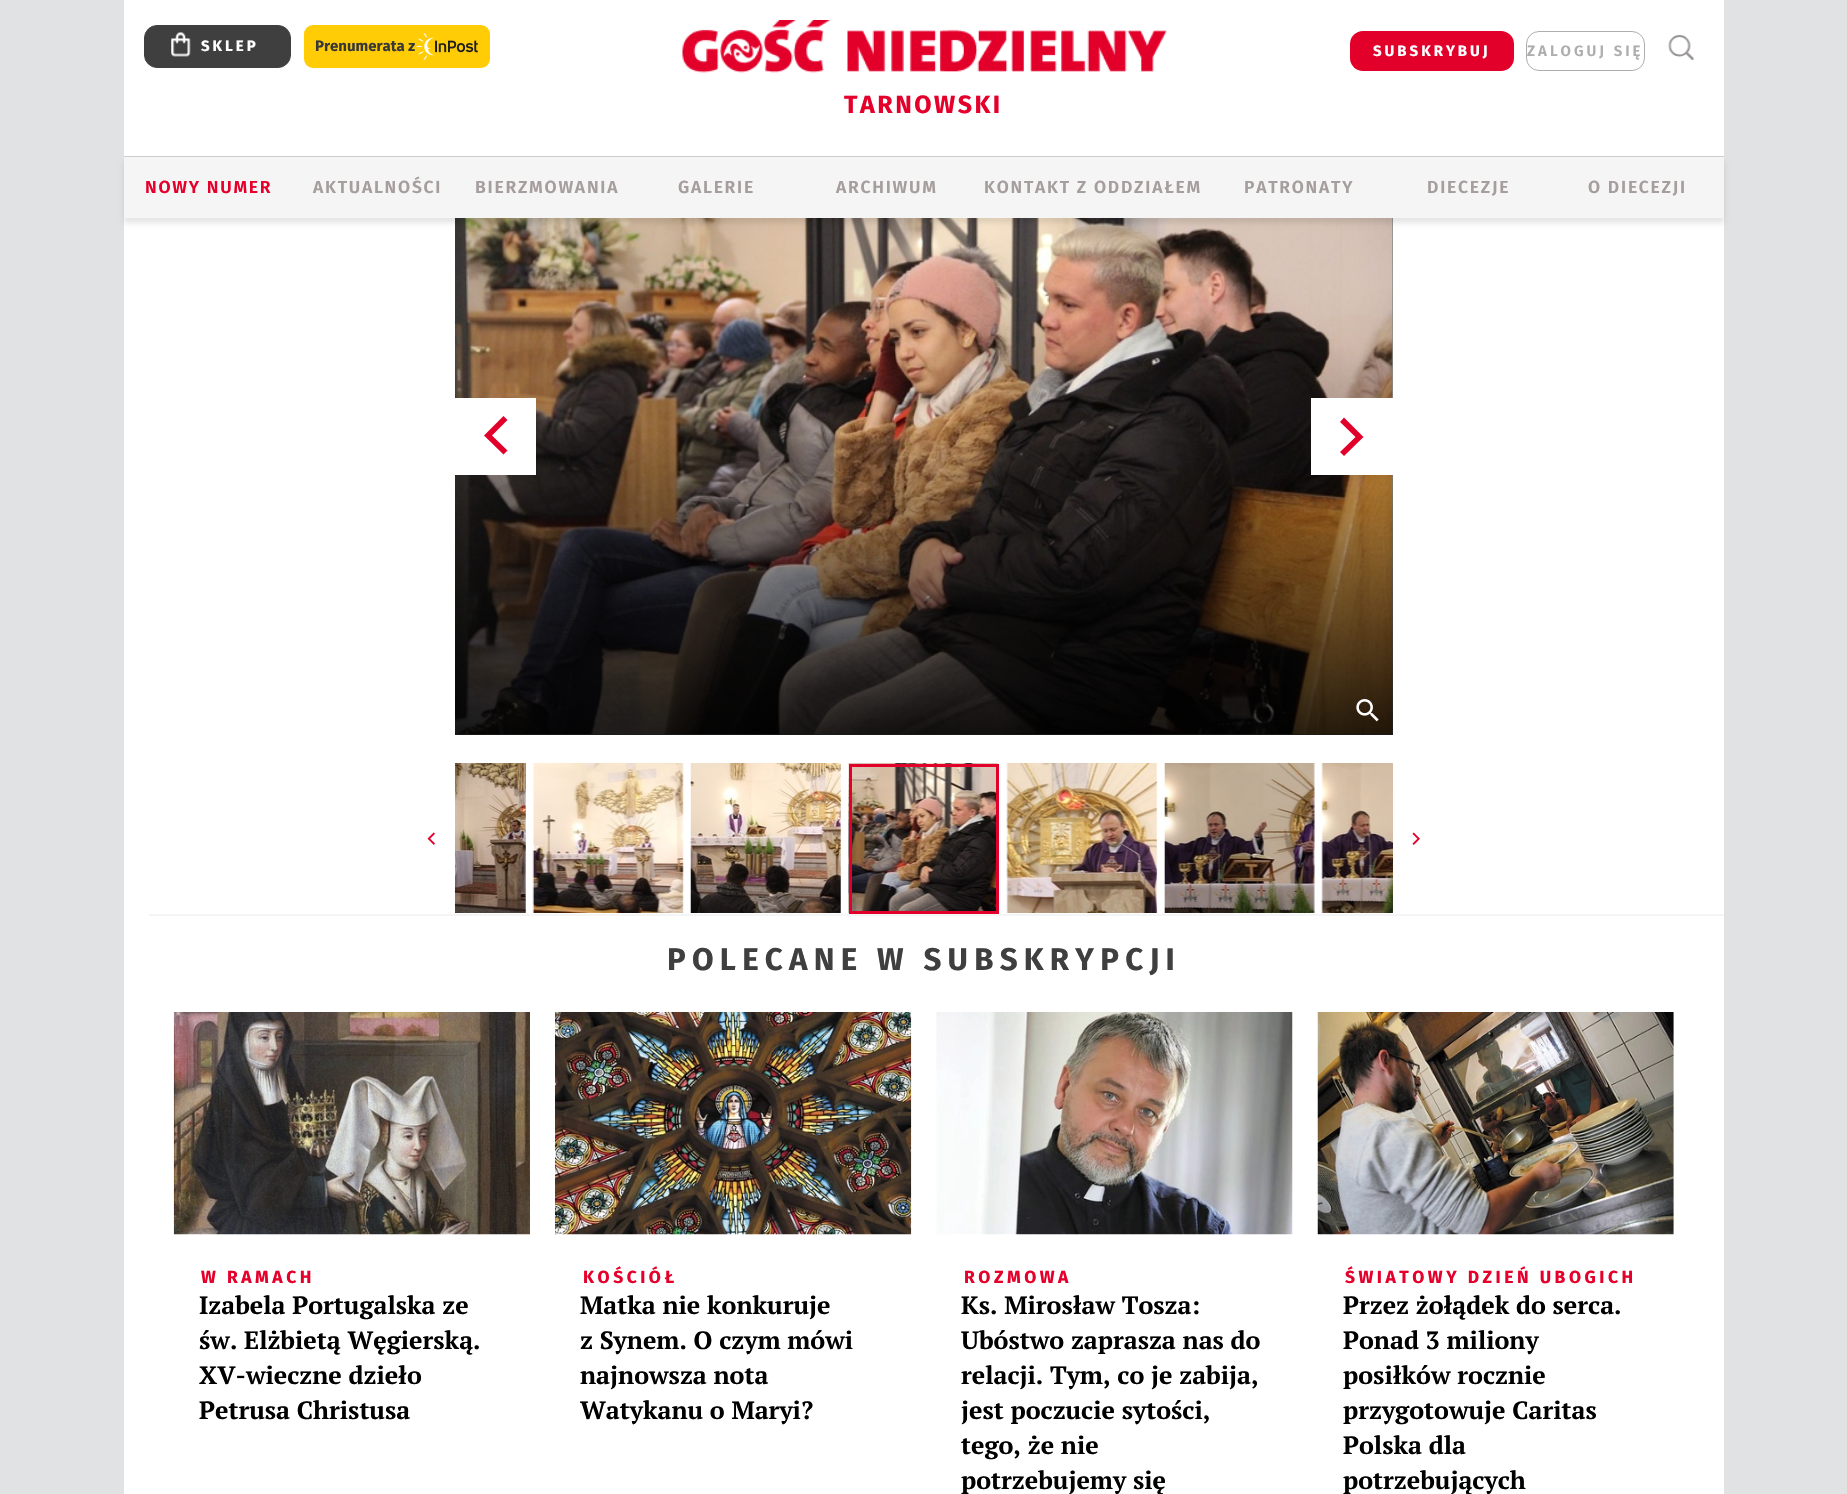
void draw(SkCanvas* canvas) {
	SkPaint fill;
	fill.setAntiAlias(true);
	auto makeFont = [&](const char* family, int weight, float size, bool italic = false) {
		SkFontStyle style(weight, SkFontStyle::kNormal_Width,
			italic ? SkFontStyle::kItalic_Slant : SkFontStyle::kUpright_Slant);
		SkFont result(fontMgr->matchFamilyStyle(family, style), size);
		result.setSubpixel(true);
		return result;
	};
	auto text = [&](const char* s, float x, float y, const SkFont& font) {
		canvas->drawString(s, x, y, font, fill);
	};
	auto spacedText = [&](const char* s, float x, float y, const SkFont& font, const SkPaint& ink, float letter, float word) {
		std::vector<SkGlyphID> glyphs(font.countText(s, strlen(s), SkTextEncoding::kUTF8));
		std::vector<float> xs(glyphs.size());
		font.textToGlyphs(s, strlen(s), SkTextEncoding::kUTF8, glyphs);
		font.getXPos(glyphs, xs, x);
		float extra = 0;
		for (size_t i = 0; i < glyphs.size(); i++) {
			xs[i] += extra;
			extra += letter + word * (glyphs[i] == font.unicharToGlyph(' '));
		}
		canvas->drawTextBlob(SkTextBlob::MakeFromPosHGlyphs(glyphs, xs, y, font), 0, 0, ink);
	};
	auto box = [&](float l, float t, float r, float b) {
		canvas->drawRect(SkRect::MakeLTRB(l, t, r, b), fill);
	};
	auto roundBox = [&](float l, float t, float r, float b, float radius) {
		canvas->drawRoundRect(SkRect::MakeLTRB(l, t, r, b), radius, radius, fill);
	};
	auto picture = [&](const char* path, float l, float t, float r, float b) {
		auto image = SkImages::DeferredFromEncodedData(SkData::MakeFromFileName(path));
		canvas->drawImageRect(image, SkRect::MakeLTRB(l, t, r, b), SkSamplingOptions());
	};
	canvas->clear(0xFFE1E2E4);
	fill.setColor(0xFFF5F5F5);
	box(124, 157, 1724, 218);
	fill.setColor(0xFFFFFFFF);
	box(124, 0, 1724, 156);
	fill.setColor(0xFF3F3F3F);
	canvas->drawRoundRect(SkRect::MakeLTRB(144.5f, 25.5f, 290.5f, 67.5f), 12.5f, 12.5f, fill);
	fill.setStyle(SkPaint::kStroke_Style);
	fill.setStrokeWidth(1);
	canvas->drawRoundRect(SkRect::MakeLTRB(144.5f, 25.5f, 290.5f, 67.5f), 12.5f, 12.5f, fill);
	picture("image0.png", 171, 32, 191, 57);
	fill.setStyle(SkPaint::kFill_Style);
	fill.setColor(0xFFFFCC05);
	roundBox(304, 25, 490, 68, 9);
	picture("image1.png", 416, 33, 478, 61);
	fill.setColor(0xFFE2002B);
	roundBox(1350, 31, 1514, 71, 13);
	fill.setStyle(SkPaint::kStroke_Style);
	fill.setColor(0xFFADADAD);
	canvas->drawRoundRect(SkRect::MakeLTRB(1526.5f, 31.5f, 1644.5f, 70.5f), 12.5f, 12.5f, fill);
	picture("image2.png", 1668, 35, 1694, 60);
	picture("image3.png", 682, 20, 1167, 73);
	fill.setStyle(SkPaint::kFill_Style);
	fill.setColor(0xFFFFFFFF);
	box(124, 218, 1724, 1494);
	fill.setColor(0xFF878988);
	box(455, 218, 1393, 735);
	picture("image4.png", 455, 218, 1393, 735);
	canvas->save();
	canvas->clipPath(SkPathBuilder(SkPathFillType::kEvenOdd).moveTo(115, 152).lineTo(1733, 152).lineTo(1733, 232).lineTo(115, 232).close().moveTo(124, 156).lineTo(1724, 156).lineTo(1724, 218).lineTo(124, 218).close().detach(), true);
	fill.setColor(0x1A000000);
	fill.setMaskFilter(SkMaskFilter::MakeBlur(kNormal_SkBlurStyle, 2.5f));
	canvas->drawRect(SkRect::MakeLTRB(124, 161, 1724, 223), fill);
	fill.setMaskFilter(nullptr);
	canvas->restore();
	fill.setColor(0xFFCCCCCC);
	box(124, 156, 1724, 157);
	{
		const SkColor colors[] = {0xCC000000, 0x00000000};
		const float stops[] = {0, 1};
		const SkPoint ends[] = {{924, 735}, {924, 431}};
		fill.setShader(SkGradientShader::MakeLinear(ends, colors, stops, 2, SkTileMode::kClamp));
		fill.setAlpha(255);
	}
	box(455, 439, 1393, 735);
	picture("image5.png", 1356, 699, 1379, 722);
	fill.setShader(nullptr);
	fill.setColor(0xFFFFFFFF);
	box(455, 398, 536, 475);
	fill.setColor(0xFFE2002B);
	canvas->drawPath(SkPathBuilder().moveTo(507.5f, 450.5f).lineTo(503.5f, 454.5f).lineTo(484, 435.5f).lineTo(503.5f, 416).lineTo(507.5f, 420).lineTo(492, 435.5f).close().detach(), fill);
	fill.setColor(0xFFFFFFFF);
	box(1311, 398, 1393, 475);
	fill.setColor(0xFFE2002B);
	canvas->drawPath(SkPathBuilder().moveTo(1340, 422).lineTo(1344, 417.5f).lineTo(1363.5f, 437).lineTo(1344, 456).lineTo(1340, 452).lineTo(1355.5f, 437).close().detach(), fill);
	picture("image6.png", 427, 832, 435, 845);
	picture("image7.png", 455, 763, 526, 913);
	picture("image8.png", 532, 763, 684, 913);
	picture("image9.png", 690, 763, 841, 913);
	picture("image10.png", 848, 763, 999, 913);
	fill.setStyle(SkPaint::kStroke_Style);
	fill.setStrokeWidth(3);
	canvas->drawRect(SkRect::MakeLTRB(850.5f, 765.5f, 997.5f, 912.5f), fill);
	picture("image11.png", 1006, 763, 1158, 913);
	picture("image12.png", 1164, 763, 1315, 913);
	picture("image13.png", 1321, 763, 1393, 913);
	picture("image14.png", 1412, 832, 1420, 845);
	fill.setStyle(SkPaint::kFill_Style);
	fill.setColor(0xFFF5F5F5);
	box(149, 914, 1724, 916);
	picture("image15.png", 173, 1012, 530, 1235);
	picture("image16.png", 555, 1012, 912, 1235);
	picture("image17.png", 936, 1012, 1293, 1235);
	picture("image18.png", 1317, 1012, 1674, 1235);
	auto font1 = makeFont("Fira Sans", 700, 15);
	fill.setColor(0xFFFFFFFF);
	spacedText("SKLEP", 201, 51, font1, fill, 3, 0);
	auto font2 = makeFont("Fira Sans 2", 700, 15);
	fill.setColor(0xFF383838);
	text("Prenumerata z", 315, 51, font2);
	fill.setColor(0xFFFFFFFF);
	spacedText("SUBSKRYBUJ", 1373, 56, font1, fill, 3, 0);
	auto font3 = makeFont("Fira Sans", 600, 15);
	fill.setColor(0xFFADADAD);
	spacedText("ZALOGUJ SIĘ", 1527, 56, font3, fill, 3, 0);
	auto font4 = makeFont("Fira Sans", 700, 25);
	fill.setColor(0xFFE5002B);
	spacedText("TARNOWSKI", 844, 113, font4, fill, 2.5f, 0);
	auto font5 = makeFont("Fira Sans", 600, 17.5f);
	spacedText("NOWY NUMER", 145, 193, font5, fill, 1.75f, 0);
	fill.setColor(0xFFA69D9D);
	spacedText("AKTUALNOŚCI", 313, 193, font5, fill, 1.75f, 0);
	spacedText("BIERZMOWANIA", 475, 193, font5, fill, 1.75f, 0);
	spacedText("GALERIE", 678, 193, font5, fill, 1.75f, 0);
	spacedText("ARCHIWUM", 836, 193, font5, fill, 1.75f, 0);
	spacedText("KONTAKT Z ODDZIAŁEM", 984, 193, font5, fill, 1.75f, 0);
	spacedText("PATRONATY", 1244, 193, font5, fill, 1.75f, 0);
	spacedText("DIECEZJE", 1427, 193, font5, fill, 1.75f, 0);
	spacedText("O DIECEZJI", 1588, 193, font5, fill, 1.75f, 0);
	auto font6 = makeFont("Fira Sans", 700, 31.25f);
	fill.setColor(0xFF3F3F3F);
	spacedText("POLECANE W SUBSKRYPCJI", 667, 970, font6, fill, 6.25f, 0);
	auto font7 = makeFont("Fira Sans", 700, 17.5f);
	fill.setColor(0xFFE5002B);
	spacedText("W RAMACH", 201, 1283, font7, fill, 3.5f, 0);
	auto font8 = makeFont("PT Serif", 700, 25);
	fill.setColor(0xFF000000);
	text("Izabela Portugalska ze", 199, 1314, font8);
	text("św. Elżbietą Węgierską.", 199, 1349, font8);
	text("XV-wieczne dzieło", 199, 1384, font8);
	text("Petrusa Christusa", 199, 1419, font8);
	fill.setColor(0xFFE5002B);
	spacedText("KOŚCIÓŁ", 583, 1283, font7, fill, 3.5f, 0);
	fill.setColor(0xFF000000);
	text("Matka nie konkuruje", 580, 1314, font8);
	text("z Synem. O czym mówi", 580, 1349, font8);
	text("najnowsza nota", 580, 1384, font8);
	text("Watykanu o Maryi?", 580, 1419, font8);
	fill.setColor(0xFFE5002B);
	spacedText("ROZMOWA", 964, 1283, font7, fill, 3.5f, 0);
	fill.setColor(0xFF000000);
	text("Ks. Mirosław Tosza:", 961, 1314, font8);
	text("Ubóstwo zaprasza nas do", 961, 1349, font8);
	text("relacji. Tym, co je zabija,", 961, 1384, font8);
	text("jest poczucie sytości,", 961, 1419, font8);
	text("tego, że nie", 961, 1454, font8);
	text("potrzebujemy się", 961, 1489, font8);
	fill.setColor(0xFFE5002B);
	spacedText("ŚWIATOWY DZIEŃ UBOGICH", 1345, 1283, font7, fill, 3.5f, 0);
	fill.setColor(0xFF000000);
	text("Przez żołądek do serca.", 1343, 1314, font8);
	text("Ponad 3 miliony", 1343, 1349, font8);
	text("posiłków rocznie", 1343, 1384, font8);
	text("przygotowuje Caritas", 1343, 1419, font8);
	text("Polska dla", 1343, 1454, font8);
	text("potrzebujących", 1343, 1489, font8);
}
